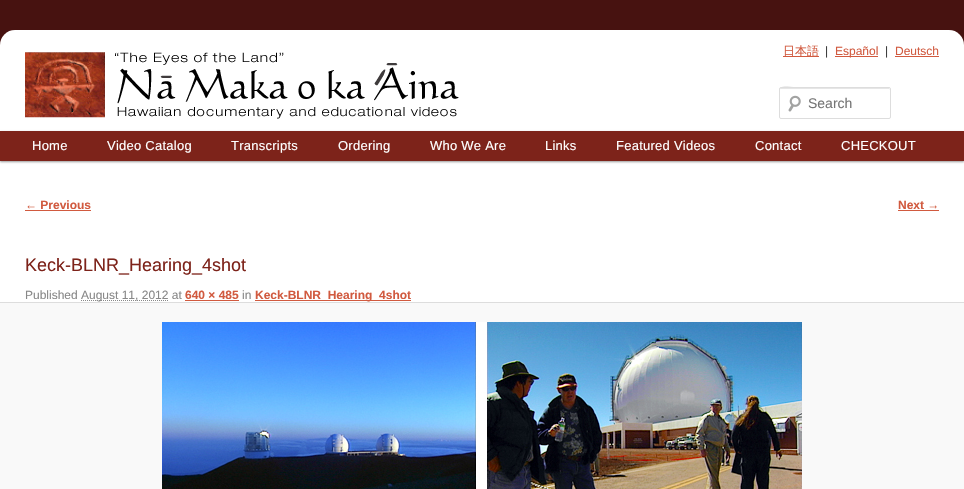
void draw(SkCanvas* canvas) {
	SkPaint fill;
	fill.setAntiAlias(true);
	auto makeFont = [&](const char* family, int weight, float size, bool italic = false) {
		SkFontStyle style(weight, SkFontStyle::kNormal_Width,
			italic ? SkFontStyle::kItalic_Slant : SkFontStyle::kUpright_Slant);
		SkFont result(fontMgr->matchFamilyStyle(family, style), size);
		result.setSubpixel(true);
		return result;
	};
	auto text = [&](const char* s, float x, float y, const SkFont& font) {
		canvas->drawString(s, x, y, font, fill);
	};
	auto spacedText = [&](const char* s, float x, float y, const SkFont& font, const SkPaint& ink, float letter, float word) {
		std::vector<SkGlyphID> glyphs(font.countText(s, strlen(s), SkTextEncoding::kUTF8));
		std::vector<float> xs(glyphs.size());
		font.textToGlyphs(s, strlen(s), SkTextEncoding::kUTF8, glyphs);
		font.getXPos(glyphs, xs, x);
		float extra = 0;
		for (size_t i = 0; i < glyphs.size(); i++) {
			xs[i] += extra;
			extra += letter + word * (glyphs[i] == font.unicharToGlyph(' '));
		}
		canvas->drawTextBlob(SkTextBlob::MakeFromPosHGlyphs(glyphs, xs, y, font), 0, 0, ink);
	};
	auto box = [&](float l, float t, float r, float b) {
		canvas->drawRect(SkRect::MakeLTRB(l, t, r, b), fill);
	};
	auto roundBox = [&](float l, float t, float r, float b, float radius) {
		canvas->drawRoundRect(SkRect::MakeLTRB(l, t, r, b), radius, radius, fill);
	};
	auto picture = [&](const char* path, float l, float t, float r, float b) {
		auto image = SkImages::DeferredFromEncodedData(SkData::MakeFromFileName(path));
		canvas->drawImageRect(image, SkRect::MakeLTRB(l, t, r, b), SkSamplingOptions());
	};
	canvas->clear(0xFF471210);
	fill.setColor(0xFFFFFFFF);
	roundBox(0, 30, 964, 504, 15);
	picture("image0.png", 25, 52, 459, 119);
	fill.setColor(0xFFD15A3F);
	box(783, 56, 819, 57);
	box(835, 56, 878, 57);
	box(895, 56, 939, 57);
	picture("image1.png", 788, 95, 801, 112);
	fill.setColor(0xFFE6E6E6);
	canvas->drawPath(SkPathBuilder().moveTo(781, 89).lineTo(890, 89).lineTo(890, 90).lineTo(889, 88).lineTo(799, 88).cubicTo(795, 88, 780, 83, 780, 90).cubicTo(780, 89, 780, 89, 781, 89).close().detach(), fill);
	fill.setStyle(SkPaint::kStroke_Style);
	fill.setStrokeWidth(1);
	fill.setColor(0xFFDDDDDD);
	canvas->drawRoundRect(SkRect::MakeLTRB(779.5f, 87.5f, 890.5f, 118.5f), 1.5f, 1.5f, fill);
	fill.setStyle(SkPaint::kFill_Style);
	fill.setColor(0x66000000);
	fill.setMaskFilter(SkMaskFilter::MakeBlur(kNormal_SkBlurStyle, 1));
	canvas->drawRect(SkRect::MakeLTRB(0, 132, 964, 162), fill);
	fill.setMaskFilter(nullptr);
	fill.setColor(0xFF7D231A);
	box(0, 131, 964, 161);
	fill.setColor(0xFFD15A3F);
	box(25, 210, 91, 211);
	box(898, 210, 939, 211);
	fill.setStyle(SkPaint::kStroke_Style);
	fill.setColor(0xFF888888);
	fill.setPathEffect(SkDashPathEffect::Make({{1, 1}}, 0));
	canvas->drawPath(SkPathBuilder().moveTo(81, 300.5f).lineTo(168.5f, 300.5f).detach(), fill);
	fill.setPathEffect(nullptr);
	fill.setStyle(SkPaint::kFill_Style);
	fill.setColor(0xFFD15A3F);
	box(185, 300, 239, 301);
	box(255, 300, 411, 301);
	fill.setColor(0xFFF9F9F9);
	box(0, 303, 964, 489);
	fill.setColor(0xFFDDDDDD);
	box(0, 302, 964, 303);
	picture("image2.png", 162, 322, 802, 489);
	auto font1 = makeFont("WenQuanYi Zen Hei", 500, 12);
	fill.setColor(0xFFD15A3F);
	text("日本語", 783, 55, font1);
	auto font2 = makeFont("Liberation Sans", 400, 12);
	fill.setColor(0xFF373737);
	text("|", 825, 55, font2);
	fill.setColor(0xFFD15A3F);
	text("Español", 835, 55, font2);
	fill.setColor(0xFF373737);
	text("|", 885, 55, font2);
	fill.setColor(0xFFD15A3F);
	text("Deutsch", 895, 55, font2);
	auto font3 = makeFont("Liberation Sans", 400, 14);
	fill.setColor(0xFF757575);
	text("Search", 808, 108, font3);
	auto font4 = makeFont("Liberation Sans", 400, 13);
	fill.setColor(0xFFFFFFFF);
	spacedText("Home", 32, 150, font4, fill, 0.25f, 0);
	spacedText("Video Catalog", 107, 150, font4, fill, 0.25f, 0);
	spacedText("Transcripts", 231, 150, font4, fill, 0.25f, 0);
	spacedText("Ordering", 338, 150, font4, fill, 0.25f, 0);
	spacedText("Who We Are", 430, 150, font4, fill, 0.25f, 0);
	spacedText("Links", 545, 150, font4, fill, 0.25f, 0);
	spacedText("Featured Videos", 616, 150, font4, fill, 0.25f, 0);
	spacedText("Contact", 755, 150, font4, fill, 0.25f, 0);
	spacedText("CHECKOUT", 841, 150, font4, fill, 0.25f, 0);
	auto font5 = makeFont("Liberation Sans", 700, 12);
	fill.setColor(0xFFD15A3F);
	text("← Previous", 25, 209, font5);
	text("Next →", 898, 209, font5);
	auto font6 = makeFont("Liberation Sans", 400, 18);
	fill.setColor(0xFF7D231A);
	text("Keck-BLNR_Hearing_4shot", 25, 271, font6);
	fill.setColor(0xFF888888);
	text("Published", 25, 299, font2);
	text("August 11, 2012 at", 81, 299, font2);
	fill.setColor(0xFFD15A3F);
	text("640 × 485", 185, 299, font5);
	fill.setColor(0xFF888888);
	text("in", 242, 299, font2);
	fill.setColor(0xFFD15A3F);
	text("Keck-BLNR_Hearing_4shot", 255, 299, font5);
}
